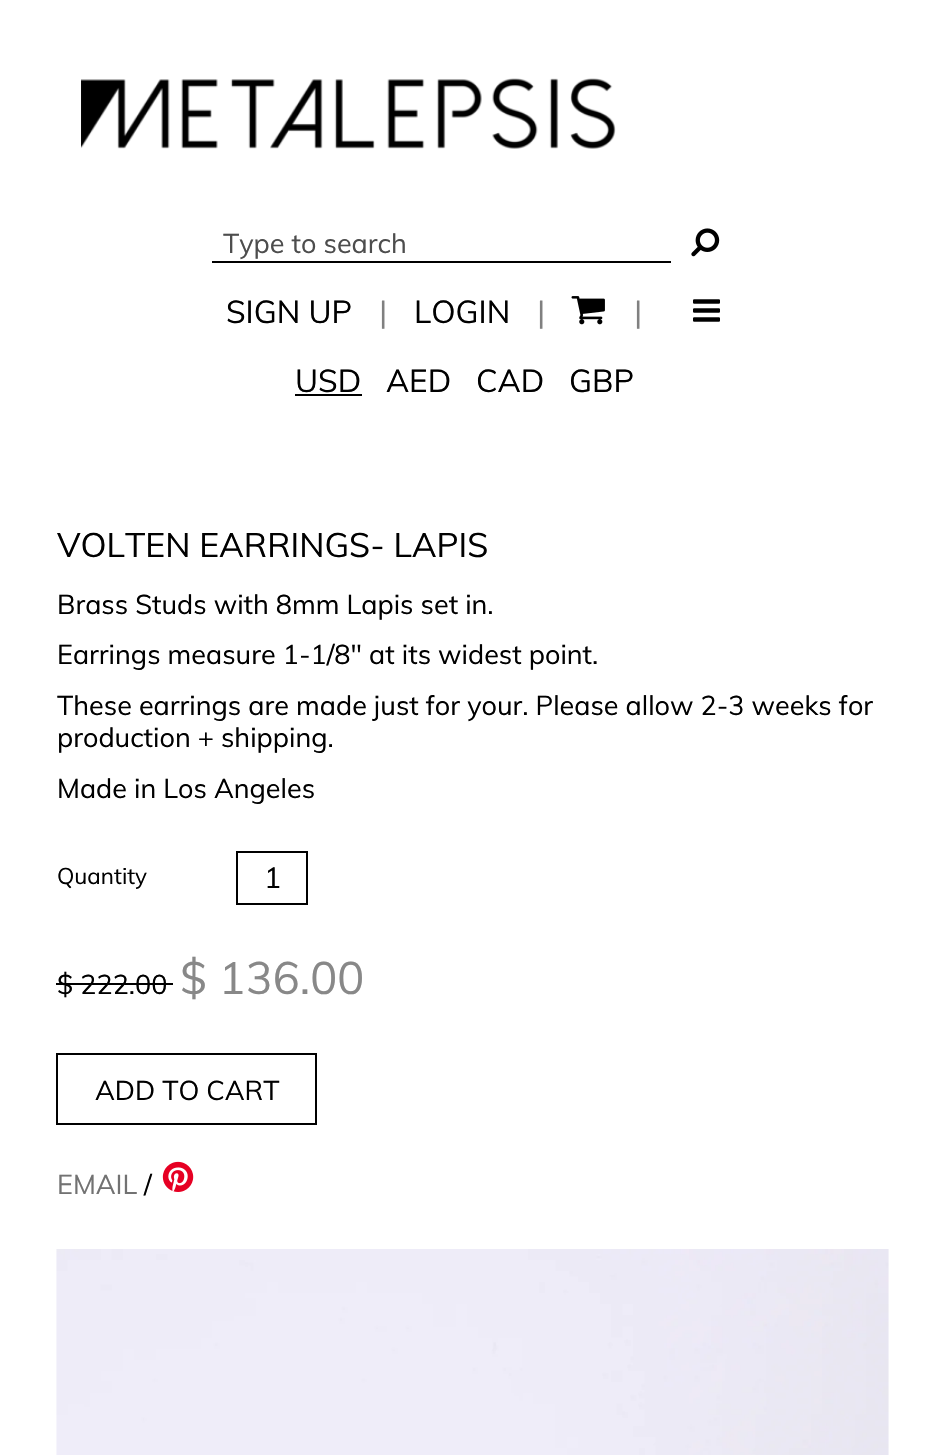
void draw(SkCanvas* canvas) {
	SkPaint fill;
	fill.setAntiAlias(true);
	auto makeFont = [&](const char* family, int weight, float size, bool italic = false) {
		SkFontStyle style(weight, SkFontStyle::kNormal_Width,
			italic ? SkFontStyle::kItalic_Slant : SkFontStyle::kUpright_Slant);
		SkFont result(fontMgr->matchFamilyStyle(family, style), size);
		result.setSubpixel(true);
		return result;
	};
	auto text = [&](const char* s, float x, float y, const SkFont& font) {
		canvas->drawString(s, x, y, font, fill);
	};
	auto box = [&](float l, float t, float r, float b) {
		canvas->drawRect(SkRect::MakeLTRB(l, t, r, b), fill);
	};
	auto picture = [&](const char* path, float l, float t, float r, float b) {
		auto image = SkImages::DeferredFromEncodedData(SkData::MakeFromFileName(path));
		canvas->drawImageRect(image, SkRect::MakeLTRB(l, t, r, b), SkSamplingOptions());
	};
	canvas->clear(0xFFFFFFFF);
	picture("image0.png", 81, 78, 616, 149);
	fill.setColor(0xFF000000);
	box(212, 261, 671, 263);
	picture("image1.png", 691, 228, 720, 257);
	picture("image2.png", 571, 296, 605, 325);
	picture("image3.png", 693, 299, 720, 322);
	box(295, 394, 362, 396);
	fill.setStyle(SkPaint::kStroke_Style);
	fill.setStrokeWidth(2);
	canvas->drawRect(SkRect::MakeLTRB(237, 852, 307, 904), fill);
	fill.setStyle(SkPaint::kFill_Style);
	box(56, 983, 173, 985);
	fill.setStyle(SkPaint::kStroke_Style);
	canvas->drawRect(SkRect::MakeLTRB(57, 1054, 316, 1124), fill);
	picture("image4.png", 162, 1161, 194, 1192);
	picture("image5.png", 56, 1249, 889, 1455);
	auto font1 = makeFont("Muli", 400, 27);
	fill.setStyle(SkPaint::kFill_Style);
	fill.setColor(0xFF4D4D4D);
	text("Type to search", 223, 253, font1);
	auto font2 = makeFont("Muli", 400, 31.5f);
	fill.setColor(0xFF000000);
	text("SIGN UP", 226, 323, font2);
	fill.setColor(0xFF808080);
	text("|", 379, 323, font2);
	fill.setColor(0xFF000000);
	text("LOGIN", 414, 323, font2);
	fill.setColor(0xFF808080);
	text("|", 537, 323, font2);
	text("|", 634, 323, font2);
	fill.setColor(0xFF000000);
	text("USD", 295, 392, font2);
	text("AED", 386, 392, font2);
	text("CAD", 476, 392, font2);
	text("GBP", 569, 392, font2);
	auto font3 = makeFont("Muli", 400, 33.75f);
	text("VOLTEN EARRINGS- LAPIS", 57, 557, font3);
	text("Brass Studs with 8mm Lapis set in.", 57, 614, font1);
	text("Earrings measure 1-1/8\" at its widest point.", 57, 664, font1);
	text("These earrings are made just for your. Please allow 2-3 weeks for", 57, 715, font1);
	text("production + shipping.", 57, 747, font1);
	text("Made in Los Angeles", 57, 798, font1);
	auto font4 = makeFont("Muli", 400, 22.5f);
	text("Quantity", 57, 884, font4);
	auto font5 = makeFont("Muli", 400, 29);
	text("1", 264, 888, font5);
	text("$ 222.00", 57, 994, font1);
	auto font6 = makeFont("Muli", 400, 45);
	fill.setColor(0xFF888888);
	text("$ 136.00", 180, 994, font6);
	fill.setColor(0xFF000000);
	text("ADD TO CART", 95, 1100, font1);
	fill.setColor(0xFF727272);
	text("EMAIL", 57, 1194, font1);
	fill.setColor(0xFF000000);
	text("/", 144, 1194, font1);
}
